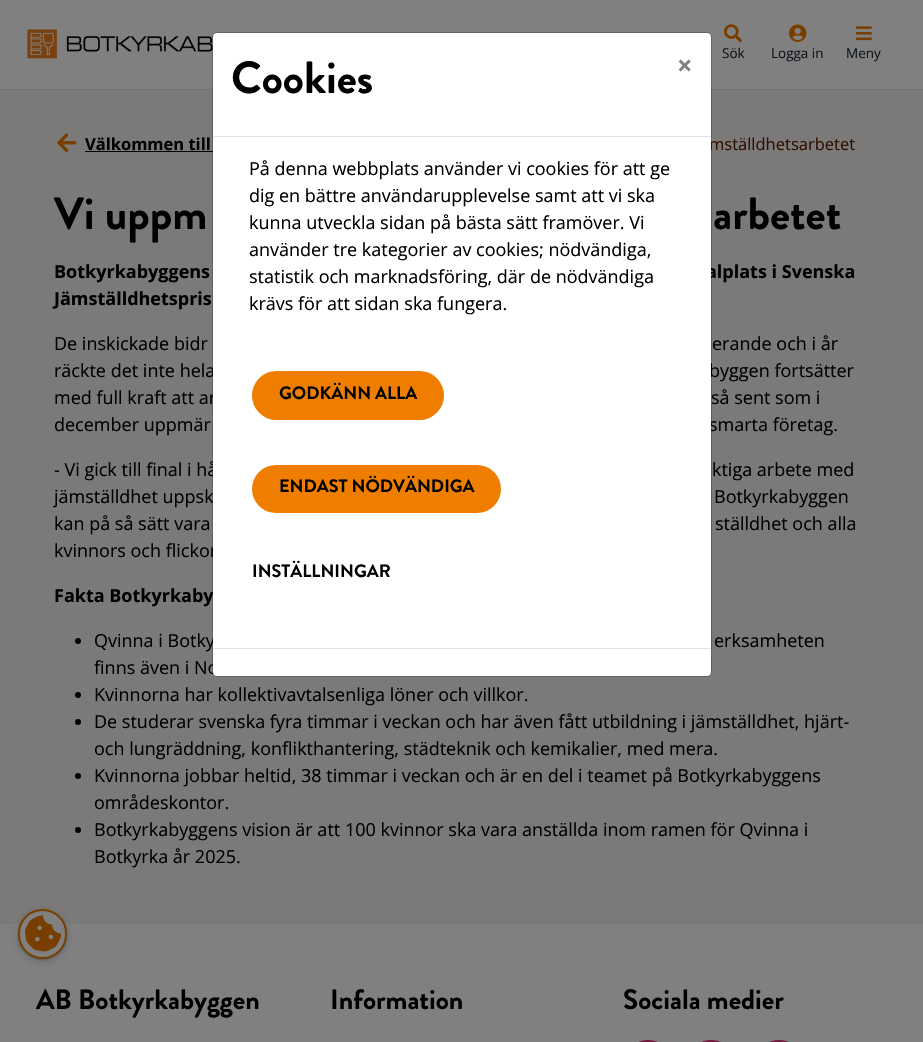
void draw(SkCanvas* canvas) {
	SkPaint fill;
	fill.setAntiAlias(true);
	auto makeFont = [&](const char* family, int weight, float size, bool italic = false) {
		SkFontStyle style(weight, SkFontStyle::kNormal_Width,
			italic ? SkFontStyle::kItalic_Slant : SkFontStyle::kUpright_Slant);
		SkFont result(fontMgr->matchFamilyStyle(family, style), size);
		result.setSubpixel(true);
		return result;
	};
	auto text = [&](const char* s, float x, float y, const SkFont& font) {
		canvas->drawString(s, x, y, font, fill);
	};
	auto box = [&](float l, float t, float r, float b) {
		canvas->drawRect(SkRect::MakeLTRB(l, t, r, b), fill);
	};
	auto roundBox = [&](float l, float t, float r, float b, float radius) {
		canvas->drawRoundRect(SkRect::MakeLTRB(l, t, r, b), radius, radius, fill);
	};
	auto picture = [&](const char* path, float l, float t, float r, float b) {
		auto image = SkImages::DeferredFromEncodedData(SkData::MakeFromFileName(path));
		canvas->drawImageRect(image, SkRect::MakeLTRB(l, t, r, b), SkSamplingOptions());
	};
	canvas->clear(0xFF808080);
	fill.setColor(0xFF717274);
	box(0, 89, 923, 90);
	picture("image0.png", 27, 29, 214, 59);
	picture("image1.png", 724, 24, 742, 43);
	picture("image2.png", 789, 24, 807, 42);
	picture("image3.png", 856, 26, 872, 41);
	fill.setColor(0xFF7B7A79);
	box(0, 90, 923, 924);
	picture("image4.png", 57, 133, 77, 153);
	fill.setColor(0xFF000000);
	box(85, 151, 213, 152);
	canvas->drawCircle(78, 641, 3, fill);
	canvas->drawCircle(78, 695, 3, fill);
	canvas->drawCircle(78, 722, 3, fill);
	canvas->drawCircle(78, 776, 3, fill);
	canvas->drawCircle(78, 830, 3, fill);
	picture("image5.png", 638, 1040, 658, 1042);
	picture("image5.png", 701, 1040, 721, 1042);
	picture("image5.png", 769, 1040, 789, 1042);
	fill.setColor(0x261E2022);
	fill.setMaskFilter(SkMaskFilter::MakeBlur(kNormal_SkBlurStyle, 3));
	canvas->drawRoundRect(SkRect::MakeLTRB(16, 909, 69, 963), 26.5f, 26.5f, fill);
	fill.setMaskFilter(nullptr);
	fill.setColor(0x4D1E2022);
	fill.setMaskFilter(SkMaskFilter::MakeBlur(kNormal_SkBlurStyle, 1));
	canvas->drawRoundRect(SkRect::MakeLTRB(18, 910, 67, 960), 24.5f, 24.5f, fill);
	fill.setMaskFilter(nullptr);
	fill.setColor(0xFF808080);
	canvas->drawRoundRect(SkRect::MakeLTRB(19, 910, 66, 958), 23.5f, 23.5f, fill);
	fill.setStyle(SkPaint::kStroke_Style);
	fill.setStrokeWidth(2);
	fill.setColor(0xFF783F00);
	canvas->drawRoundRect(SkRect::MakeLTRB(19, 910, 66, 958), 23.5f, 23.5f, fill);
	picture("image6.png", 25, 915, 61, 952);
	auto font1 = makeFont("Open Sans", 400, 13.5f);
	fill.setStyle(SkPaint::kFill_Style);
	fill.setColor(0xFF10151C);
	text("Sök", 722, 58, font1);
	text("Logga in", 771, 58, font1);
	text("Meny", 846, 58, font1);
	auto font2 = makeFont("Open Sans", 700, 16.5f);
	fill.setColor(0xFF000000);
	text("Välkommen till", 85, 150, font2);
	auto font3 = makeFont("Open Sans", 400, 16.5f);
	fill.setColor(0xFF2E0E00);
	text("mställdhetsarbetet", 709, 150, font3);
	auto font4 = makeFont("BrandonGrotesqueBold", 700, 45);
	fill.setColor(0xFF000000);
	text("Vi uppm", 54, 229, font4);
	text("arbetet", 713, 229, font4);
	auto font5 = makeFont("Open Sans", 700, 18);
	text("Botkyrkabyggens", 54, 278, font5);
	text("alplats i Svenska", 706, 278, font5);
	text("Jämställdhetspris", 54, 305, font5);
	auto font6 = makeFont("Open Sans", 400, 18);
	text("De inskickade bidr", 54, 350, font6);
	text("erande och i år", 712, 350, font6);
	text("räckte det inte hela", 54, 377, font6);
	text("byggen fortsätter", 709, 377, font6);
	text("med full kraft att ar", 54, 404, font6);
	text("så sent som i", 711, 404, font6);
	text("december uppmär", 54, 431, font6);
	text("smarta företag.", 709, 431, font6);
	text("- Vi gick till final i hå", 54, 476, font6);
	text("ktiga arbete med", 712, 476, font6);
	text("jämställdhet uppsk", 54, 503, font6);
	text("Botkyrkabyggen", 714, 503, font6);
	text("kan på så sätt vara", 54, 530, font6);
	text("ställdhet och alla", 715, 530, font6);
	text("kvinnors och flickor", 54, 557, font6);
	text("Fakta Botkyrkaby", 54, 602, font5);
	text("Qvinna i Botky", 94, 647, font6);
	text("erksamheten", 714, 647, font6);
	text("finns även i No", 94, 674, font6);
	text("Kvinnorna har kollektivavtalsenliga löner och villkor.", 94, 701, font6);
	text("De studerar svenska fyra timmar i veckan och har även fått utbildning i jämställdhet, hjärt-", 94, 728, font6);
	text("och lungräddning, konflikthantering, städteknik och kemikalier, med mera.", 94, 755, font6);
	text("Kvinnorna jobbar heltid, 38 timmar i veckan och är en del i teamet på Botkyrkabyggens", 94, 782, font6);
	text("områdeskontor.", 94, 809, font6);
	text("Botkyrkabyggens vision är att 100 kvinnor ska vara anställda inom ramen för Qvinna i", 94, 836, font6);
	text("Botkyrka år 2025.", 94, 863, font6);
	auto font7 = makeFont("BrandonGrotesqueBold", 700, 28);
	text("AB Botkyrkabyggen", 36, 1009, font7);
	text("Information", 330, 1009, font7);
	text("Sociala medier", 623, 1009, font7);
	fill.setColor(0xFFFFFFFF);
	roundBox(213, 33, 711, 676, 4);
	fill.setStyle(SkPaint::kStroke_Style);
	fill.setStrokeWidth(1);
	fill.setColor(0x33000000);
	canvas->drawRoundRect(SkRect::MakeLTRB(212.5f, 32.5f, 711.5f, 676.5f), 4.5f, 4.5f, fill);
	fill.setStyle(SkPaint::kFill_Style);
	fill.setColor(0xFFDEE2E6);
	box(213, 136, 711, 137);
	fill.setColor(0xFF000000);
	text("Cookies", 231, 93, font4);
	auto font8 = makeFont("Open Sans", 700, 27);
	fill.setColor(0xFF808080);
	text("×", 677, 75, font8);
	fill.setColor(0xFF000000);
	text("På denna webbplats använder vi cookies för att ge", 249, 175, font6);
	text("dig en bättre användarupplevelse samt att vi ska", 249, 202, font6);
	text("kunna utveckla sidan på bästa sätt framöver. Vi", 249, 229, font6);
	text("använder tre kategorier av cookies; nödvändiga,", 249, 256, font6);
	text("statistik och marknadsföring, där de nödvändiga", 249, 283, font6);
	text("krävs för att sidan ska fungera.", 249, 310, font6);
	fill.setColor(0xFFEF7D00);
	roundBox(252, 371, 444, 420, 24.5f);
	auto font9 = makeFont("BrandonGrotesqueBold", 700, 18);
	fill.setColor(0xFF000000);
	text("GODKÄNN ALLA", 279, 399, font9);
	fill.setColor(0xFFEF7D00);
	roundBox(252, 465, 501, 513, 24);
	fill.setColor(0xFF000000);
	text("ENDAST NÖDVÄNDIGA", 279, 492, font9);
	text("INSTÄLLNINGAR", 252, 577, font9);
	fill.setColor(0xFFDEE2E6);
	box(213, 648, 711, 649);
}
